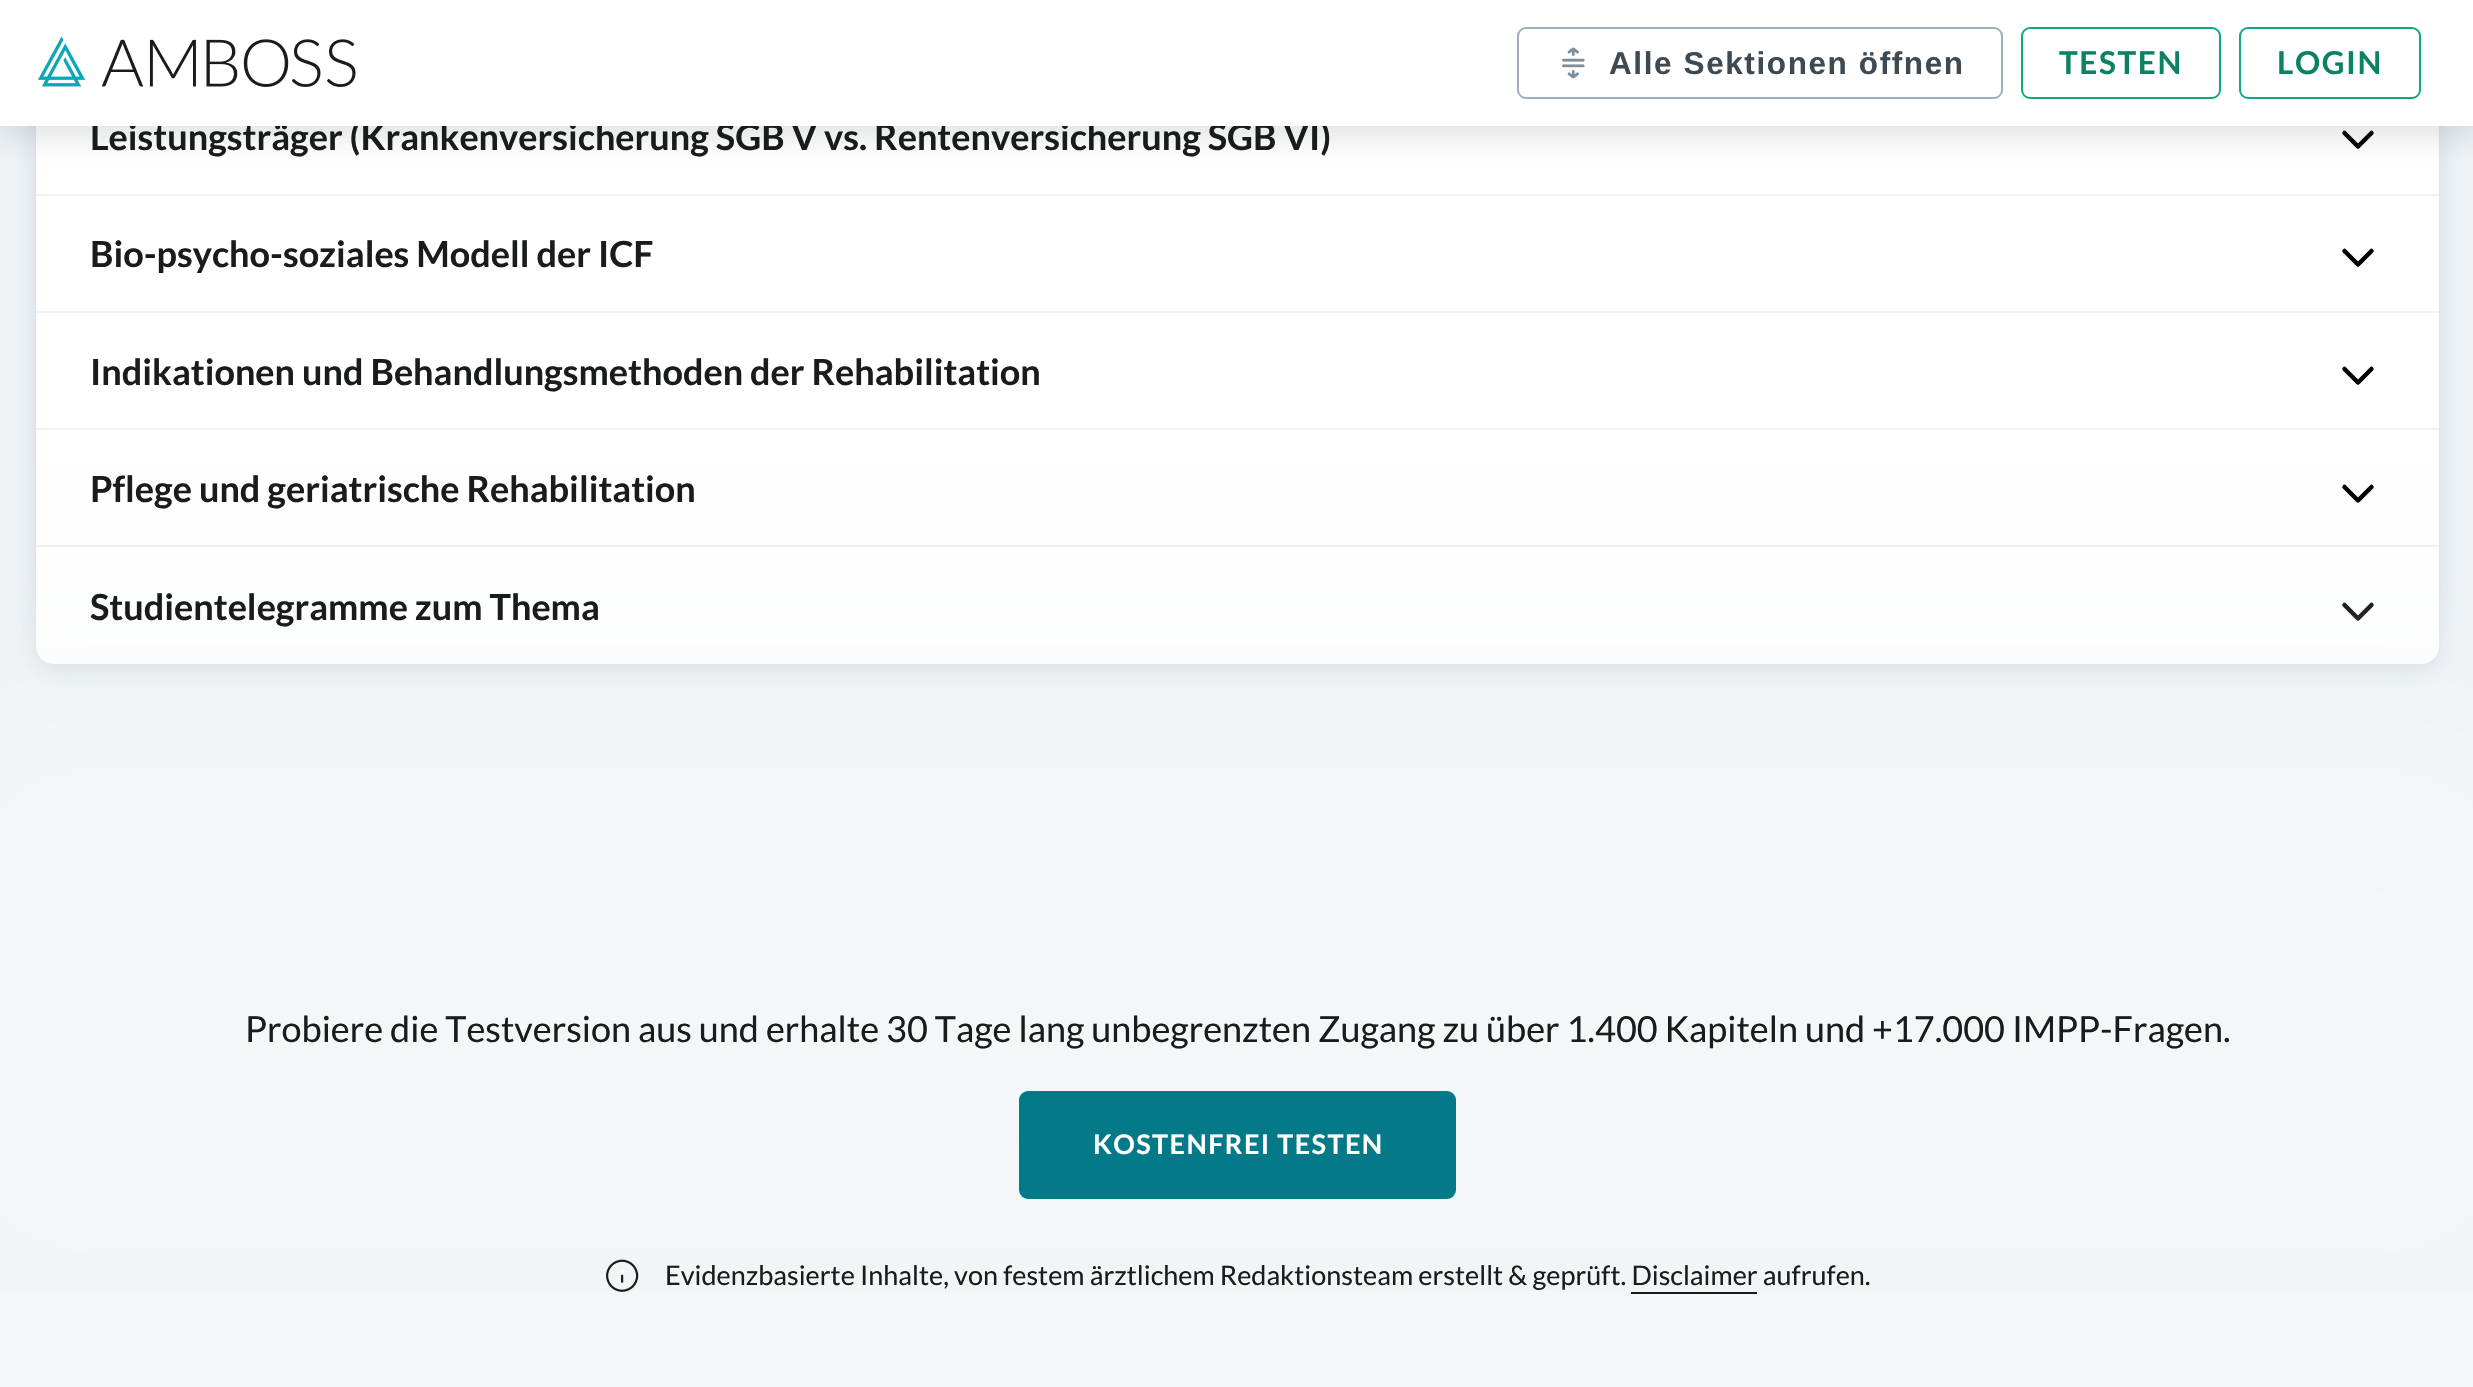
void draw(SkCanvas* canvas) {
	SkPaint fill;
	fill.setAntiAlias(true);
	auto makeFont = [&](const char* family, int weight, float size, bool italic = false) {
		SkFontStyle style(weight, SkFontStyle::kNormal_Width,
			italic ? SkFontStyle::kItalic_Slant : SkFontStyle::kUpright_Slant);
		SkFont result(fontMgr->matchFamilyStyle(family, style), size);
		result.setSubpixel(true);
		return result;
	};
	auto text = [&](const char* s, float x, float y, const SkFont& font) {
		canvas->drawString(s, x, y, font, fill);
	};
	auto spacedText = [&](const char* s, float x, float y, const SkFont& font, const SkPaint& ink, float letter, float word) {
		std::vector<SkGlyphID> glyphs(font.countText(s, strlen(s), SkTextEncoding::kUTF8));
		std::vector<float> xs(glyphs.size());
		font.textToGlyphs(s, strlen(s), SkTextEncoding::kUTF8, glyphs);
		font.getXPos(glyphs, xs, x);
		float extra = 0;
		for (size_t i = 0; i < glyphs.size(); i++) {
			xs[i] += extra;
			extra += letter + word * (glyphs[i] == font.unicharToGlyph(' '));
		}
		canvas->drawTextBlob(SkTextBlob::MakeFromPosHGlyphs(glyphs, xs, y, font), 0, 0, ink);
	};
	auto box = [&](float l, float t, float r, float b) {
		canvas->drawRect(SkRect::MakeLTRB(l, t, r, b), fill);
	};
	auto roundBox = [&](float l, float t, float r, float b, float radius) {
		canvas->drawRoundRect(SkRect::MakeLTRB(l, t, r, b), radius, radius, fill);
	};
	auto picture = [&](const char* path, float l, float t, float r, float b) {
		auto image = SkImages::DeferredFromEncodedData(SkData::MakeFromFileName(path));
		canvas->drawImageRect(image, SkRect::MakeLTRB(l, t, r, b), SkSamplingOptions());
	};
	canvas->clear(0xFFEEF2F5);
	fill.setColor(0x0F3D4A54);
	fill.setMaskFilter(SkMaskFilter::MakeBlur(kNormal_SkBlurStyle, 13.5f));
	canvas->drawRoundRect(SkRect::MakeLTRB(36, -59, 2439, 671), 18, 18, fill);
	fill.setMaskFilter(nullptr);
	fill.setColor(0x1A3D4A54);
	fill.setMaskFilter(SkMaskFilter::MakeBlur(kNormal_SkBlurStyle, 9));
	canvas->drawRoundRect(SkRect::MakeLTRB(36, -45, 2439, 671), 18, 18, fill);
	fill.setMaskFilter(nullptr);
	fill.setColor(0xFFFFFFFF);
	roundBox(36, -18, 2439, 664, 18);
	fill.setStyle(SkPaint::kStroke_Style);
	fill.setStrokeWidth(4.5f);
	fill.setStrokeCap(SkPaint::kRound_Cap);
	fill.setStrokeJoin(SkPaint::kRound_Join);
	fill.setColor(0xFF000000);
	canvas->drawPath(SkPathBuilder().moveTo(2344.5f, 133).lineTo(2358, 146.5f).lineTo(2371.5f, 133).detach(), fill);
	fill.setStyle(SkPaint::kFill_Style);
	fill.setColor(0x0F3D4A54);
	fill.setMaskFilter(SkMaskFilter::MakeBlur(kNormal_SkBlurStyle, 18));
	canvas->drawRect(SkRect::MakeLTRB(0, 9, 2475, 135), fill);
	fill.setMaskFilter(nullptr);
	fill.setColor(0x1F3D4A54);
	fill.setMaskFilter(SkMaskFilter::MakeBlur(kNormal_SkBlurStyle, 13.5f));
	canvas->drawRect(SkRect::MakeLTRB(0, 9, 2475, 135), fill);
	fill.setMaskFilter(nullptr);
	fill.setColor(0xFFEEF2F5);
	box(36, 194, 2439, 196);
	fill.setStyle(SkPaint::kStroke_Style);
	fill.setColor(0xFF000000);
	canvas->drawPath(SkPathBuilder().moveTo(2344.5f, 251).lineTo(2358, 264.5f).lineTo(2371.5f, 251).detach(), fill);
	fill.setStyle(SkPaint::kFill_Style);
	fill.setColor(0xFFEEF2F5);
	box(36, 311, 2439, 313);
	fill.setStyle(SkPaint::kStroke_Style);
	fill.setColor(0xFF000000);
	canvas->drawPath(SkPathBuilder().moveTo(2344.5f, 369).lineTo(2358, 382.5f).lineTo(2371.5f, 369).detach(), fill);
	fill.setStyle(SkPaint::kFill_Style);
	fill.setColor(0xFFEEF2F5);
	box(36, 428, 2439, 430);
	fill.setStyle(SkPaint::kStroke_Style);
	fill.setColor(0xFF000000);
	canvas->drawPath(SkPathBuilder().moveTo(2344.5f, 487).lineTo(2358, 500.5f).lineTo(2371.5f, 487).detach(), fill);
	fill.setStyle(SkPaint::kFill_Style);
	fill.setColor(0xFFEEF2F5);
	box(36, 545, 2439, 547);
	fill.setStyle(SkPaint::kStroke_Style);
	fill.setColor(0xFF000000);
	canvas->drawPath(SkPathBuilder().moveTo(2344.5f, 605).lineTo(2358, 618.5f).lineTo(2371.5f, 605).detach(), fill);
	fill.setStyle(SkPaint::kFill_Style);
	fill.setColor(0xFFF4F7F9);
	fill.setMaskFilter(SkMaskFilter::MakeBlur(kNormal_SkBlurStyle, 79));
	canvas->drawRect(SkRect::MakeLTRB(-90, 700, 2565, 1321), fill);
	fill.setMaskFilter(nullptr);
	box(0, 1291, 2473, 1387);
	fill.setColor(0xFF047A88);
	roundBox(1019, 1091, 1456, 1199, 9);
	picture("image2.png", 606, 1259, 639, 1292);
	fill.setColor(0xFF1A1C1C);
	box(1631, 1292, 1757, 1294);
	auto font1 = makeFont("Lato", 700, 36);
	text("Leistungsträger (Krankenversicherung SGB V vs. Rentenversicherung SGB VI)", 90, 150, font1);
	fill.setColor(0xFFFFFFFF);
	box(0, 0, 2473, 126);
	fill.setStyle(SkPaint::kStroke_Style);
	fill.setStrokeWidth(2);
	fill.setStrokeCap(SkPaint::kButt_Cap);
	fill.setStrokeJoin(SkPaint::kMiter_Join);
	fill.setColor(0xFF9DAEBB);
	canvas->drawRoundRect(SkRect::MakeLTRB(1518, 28, 2002, 98), 8, 8, fill);
	picture("image1.png", 1562, 47, 1585, 79);
	fill.setColor(0xFF0FA980);
	canvas->drawRoundRect(SkRect::MakeLTRB(2240, 28, 2420, 98), 8, 8, fill);
	auto font2 = makeFont("Lato", 700, 31.5f);
	fill.setStyle(SkPaint::kFill_Style);
	fill.setColor(0xFF0B8363);
	spacedText("LOGIN", 2277, 74, font2, fill, 1.6f, 0);
	fill.setStyle(SkPaint::kStroke_Style);
	fill.setColor(0xFF0FA980);
	canvas->drawRoundRect(SkRect::MakeLTRB(2022, 28, 2220, 98), 8, 8, fill);
	fill.setStyle(SkPaint::kFill_Style);
	fill.setColor(0xFF0B8363);
	spacedText("TESTEN", 2059, 74, font2, fill, 1.6f, 0);
	auto font3 = makeFont("Liberation Sans", 700, 31.5f);
	fill.setColor(0xFF3D4A54);
	spacedText("Alle Sektionen öffnen", 1609, 74, font3, fill, 1.6f, 0);
	picture("image0.png", 38, 36, 356, 87);
	fill.setColor(0xFF1A1C1C);
	text("Bio-psycho-soziales Modell der ICF", 90, 267, font1);
	text("Indikationen und Behandlungsmethoden der Rehabilitation", 90, 385, font1);
	text("Pflege und geriatrische Rehabilitation", 90, 502, font1);
	text("Studientelegramme zum Thema", 90, 620, font1);
	auto font4 = makeFont("Lato", 400, 36);
	text("Probiere die Testversion aus und erhalte 30 Tage lang unbegrenzten Zugang zu über 1.400 Kapiteln und +17.000 IMPP-Fragen.", 245, 1042, font4);
	auto font5 = makeFont("Lato", 700, 27);
	fill.setColor(0xFFFFFFFF);
	spacedText("KOSTENFREI TESTEN", 1093, 1154, font5, fill, 1.4f, 0);
	auto font6 = makeFont("Lato", 400, 27);
	fill.setColor(0xFF1A1C1C);
	text("Evidenzbasierte Inhalte, von festem ärztlichem Redaktionsteam erstellt & geprüft. Disclaimer aufrufen.", 665, 1285, font6);
}
